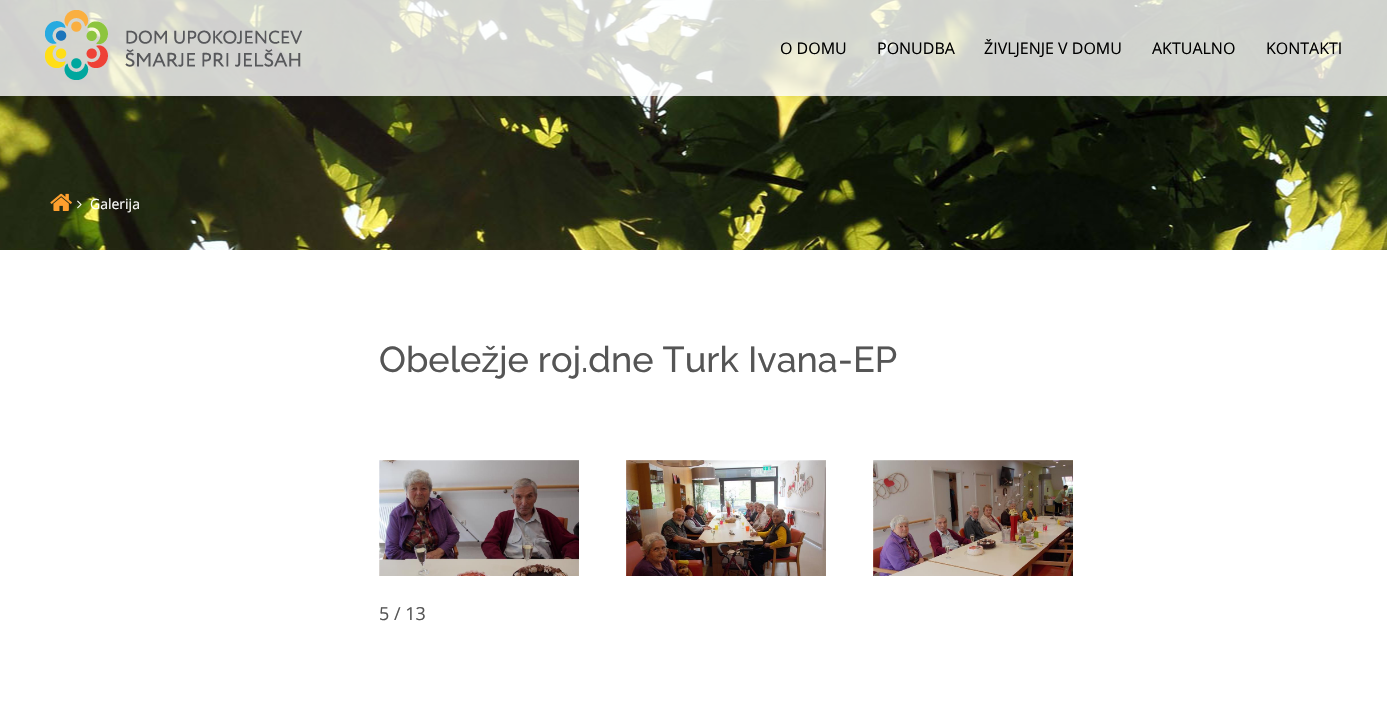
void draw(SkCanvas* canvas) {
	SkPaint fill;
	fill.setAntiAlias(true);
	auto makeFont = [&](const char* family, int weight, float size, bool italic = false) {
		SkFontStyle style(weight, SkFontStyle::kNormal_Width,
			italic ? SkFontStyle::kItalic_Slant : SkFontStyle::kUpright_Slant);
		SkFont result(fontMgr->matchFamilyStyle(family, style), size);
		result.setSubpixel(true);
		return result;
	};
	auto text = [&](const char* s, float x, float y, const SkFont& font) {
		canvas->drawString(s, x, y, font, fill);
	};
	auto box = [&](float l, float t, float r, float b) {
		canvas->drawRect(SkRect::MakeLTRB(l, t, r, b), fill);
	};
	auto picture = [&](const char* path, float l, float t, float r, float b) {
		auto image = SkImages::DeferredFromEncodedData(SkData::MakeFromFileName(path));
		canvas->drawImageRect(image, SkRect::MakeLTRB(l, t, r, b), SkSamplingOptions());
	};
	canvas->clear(0xFFFFFFFF);
	picture("image1.png", 0, 0, 1387, 250);
	fill.setColor(0xCCFFFFFF);
	box(0, 0, 1387, 96);
	picture("image0.png", 45, 10, 302, 80);
	picture("image2.png", 50, 193, 72, 211);
	picture("image3.png", 77, 200, 82, 209);
	picture("image4.png", 379, 460, 579, 576);
	picture("image5.png", 626, 460, 826, 576);
	picture("image6.png", 873, 460, 1073, 576);
	auto font1 = makeFont("Open Sans", 400, 16);
	fill.setColor(0xFF000000);
	text("O DOMU", 780, 54, font1);
	text("PONUDBA", 877, 54, font1);
	text("ŽIVLJENJE V DOMU", 984, 54, font1);
	text("AKTUALNO", 1152, 54, font1);
	text("KONTAKTI", 1266, 54, font1);
	auto font2 = makeFont("Open Sans", 400, 14);
	fill.setColor(0xFFFFFFFF);
	text("Galerija", 90, 209, font2);
	auto font3 = makeFont("Raleway", 500, 36);
	fill.setColor(0xFF555555);
	text("Obeležje roj.dne Turk Ivana-EP", 379, 372, font3);
	auto font4 = makeFont("Open Sans", 400, 18);
	text("5 / 13", 379, 620, font4);
}
